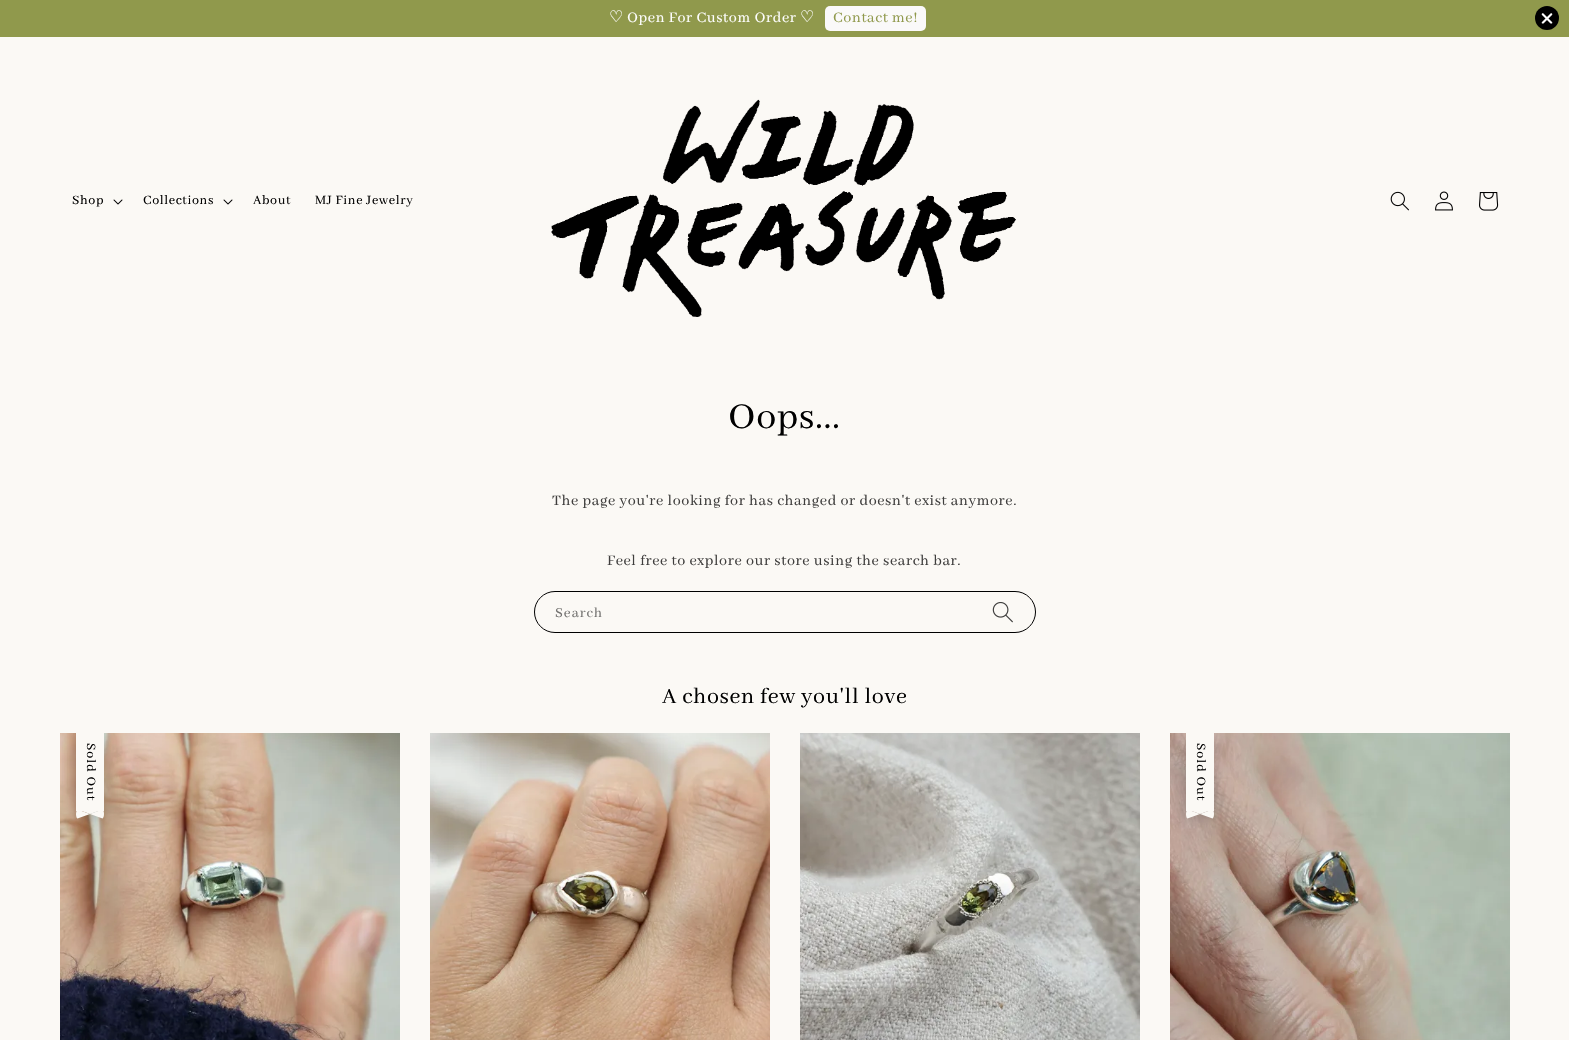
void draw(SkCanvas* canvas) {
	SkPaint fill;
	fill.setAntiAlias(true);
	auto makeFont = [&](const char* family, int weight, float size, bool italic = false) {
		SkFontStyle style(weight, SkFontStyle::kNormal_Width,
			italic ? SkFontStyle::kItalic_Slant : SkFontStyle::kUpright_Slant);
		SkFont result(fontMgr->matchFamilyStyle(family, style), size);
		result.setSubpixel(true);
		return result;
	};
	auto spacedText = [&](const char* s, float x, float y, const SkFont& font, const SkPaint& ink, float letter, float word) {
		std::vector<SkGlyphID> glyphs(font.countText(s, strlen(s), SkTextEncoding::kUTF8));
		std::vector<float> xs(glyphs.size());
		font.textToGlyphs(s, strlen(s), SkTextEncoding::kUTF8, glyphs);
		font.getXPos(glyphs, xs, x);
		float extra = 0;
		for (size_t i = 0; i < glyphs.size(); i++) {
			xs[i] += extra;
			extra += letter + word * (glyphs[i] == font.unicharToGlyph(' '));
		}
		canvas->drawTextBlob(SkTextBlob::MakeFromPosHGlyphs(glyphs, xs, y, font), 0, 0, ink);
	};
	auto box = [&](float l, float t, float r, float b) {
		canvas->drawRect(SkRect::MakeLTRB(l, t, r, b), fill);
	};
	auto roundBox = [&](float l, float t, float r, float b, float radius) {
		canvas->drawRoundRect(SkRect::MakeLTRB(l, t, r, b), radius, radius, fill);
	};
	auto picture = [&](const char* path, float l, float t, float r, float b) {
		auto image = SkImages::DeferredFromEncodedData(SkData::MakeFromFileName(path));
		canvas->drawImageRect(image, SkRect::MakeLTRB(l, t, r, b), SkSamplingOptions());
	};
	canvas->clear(0xFFFBF9F5);
	fill.setColor(0xFF90994C);
	box(0, 0, 1569, 37);
	fill.setColor(0xFFFAF9F9);
	roundBox(825, 6, 926, 31, 5);
	fill.setColor(0xFF000000);
	canvas->drawCircle(1547, 18, 12, fill);
	fill.setColor(0xFFFFFFFF);
	canvas->drawPath(SkPathBuilder().moveTo(1552, 13.5f).cubicTo(1552.5f, 14, 1552.5f, 14.5f, 1552, 15).lineTo(1543.5f, 23.5f).cubicTo(1543, 23.5f, 1542.5f, 23.5f, 1542, 23.5f).cubicTo(1541.5f, 23, 1541.5f, 22.5f, 1542, 22).lineTo(1550.5f, 13.5f).cubicTo(1551, 13, 1551.5f, 13, 1552, 13.5f).close().detach(), fill);
	canvas->drawPath(SkPathBuilder().moveTo(1542, 13.5f).cubicTo(1542.5f, 13, 1543, 13, 1543.5f, 13.5f).lineTo(1552, 22).cubicTo(1552.5f, 22.5f, 1552.5f, 23, 1552, 23.5f).cubicTo(1551.5f, 23.5f, 1551, 23.5f, 1550.5f, 23.5f).lineTo(1542, 15).cubicTo(1541.5f, 14.5f, 1541.5f, 14, 1542, 13.5f).close().detach(), fill);
	picture("image0.png", 113, 199, 123, 205);
	picture("image0.png", 223, 199, 233, 205);
	picture("image1.png", 551, 99, 1016, 317);
	picture("image2.png", 1390, 191, 1409, 211);
	picture("image3.png", 1435, 191, 1453, 211);
	picture("image4.png", 1479, 192, 1499, 211);
	fill.setStyle(SkPaint::kStroke_Style);
	fill.setStrokeWidth(1);
	fill.setColor(0xFF000000);
	canvas->drawRoundRect(SkRect::MakeLTRB(534.5f, 591.5f, 1035.5f, 632.5f), 20.5f, 20.5f, fill);
	picture("image5.png", 992, 602, 1013, 623);
	picture("image6.png", 60, 733, 400, 1040);
	canvas->save();
	canvas->clipRect(SkRect::MakeLTRB(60, 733, 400, 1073));
	fill.setStyle(SkPaint::kFill_Style);
	fill.setColor(0x33000000);
	fill.setMaskFilter(SkMaskFilter::MakeBlur(kNormal_SkBlurStyle, 7.5f));
	canvas->drawRect(SkRect::MakeLTRB(76, 739, 104, 817), fill);
	fill.setMaskFilter(nullptr);
	canvas->restore();
	fill.setColor(0xFFFBF9F5);
	box(76, 733, 104, 811);
	canvas->drawPath(SkPathBuilder().moveTo(79, 809).lineTo(77.5f, 809.5f).lineTo(90, 814).lineTo(102.5f, 809.5f).lineTo(101.5f, 809).close().detach(), fill);
	canvas->drawPath(SkPathBuilder().moveTo(90, 814).lineTo(102.5f, 809.5f).cubicTo(104.5f, 811, 104.5f, 817, 102.5f, 818.5f).close().moveTo(90, 814).lineTo(77.5f, 818.5f).cubicTo(75.5f, 817.5f, 75.5f, 811, 77.5f, 809.5f).close().detach(), fill);
	picture("image7.png", 430, 733, 770, 1040);
	picture("image8.png", 800, 733, 1140, 1040);
	picture("image9.png", 1170, 733, 1510, 1040);
	canvas->save();
	canvas->clipRect(SkRect::MakeLTRB(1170, 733, 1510, 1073));
	fill.setColor(0x33000000);
	fill.setMaskFilter(SkMaskFilter::MakeBlur(kNormal_SkBlurStyle, 7.5f));
	canvas->drawRect(SkRect::MakeLTRB(1186, 739, 1214, 817), fill);
	fill.setMaskFilter(nullptr);
	canvas->restore();
	fill.setColor(0xFFFBF9F5);
	box(1186, 733, 1214, 811);
	canvas->drawPath(SkPathBuilder().moveTo(1189, 809).lineTo(1187.5f, 809.5f).lineTo(1200, 814).lineTo(1212.5f, 809.5f).lineTo(1211.5f, 809).close().detach(), fill);
	canvas->drawPath(SkPathBuilder().moveTo(1200, 814).lineTo(1212.5f, 809.5f).cubicTo(1214.5f, 811, 1214.5f, 817, 1212.5f, 818.5f).close().moveTo(1200, 814).lineTo(1187.5f, 818.5f).cubicTo(1185.5f, 817.5f, 1185.5f, 811, 1187.5f, 809.5f).close().detach(), fill);
	auto font1 = makeFont("DejaVu Sans", 400, 16);
	fill.setColor(0xFFFFFFFF);
	spacedText("♡", 609, 22, font1, fill, 0.6f, 0);
	auto font2 = makeFont("Abhaya Libre", 400, 16);
	spacedText("Open For Custom Order", 627, 22, font2, fill, 0.6f, 0);
	spacedText("♡", 800, 22, font1, fill, 0.6f, 0);
	fill.setColor(0xFF90994C);
	spacedText("Contact me!", 833, 22, font2, fill, 0.6f, 0);
	auto font3 = makeFont("Abhaya Libre", 400, 14);
	fill.setColor(0xFF000000);
	spacedText("Shop", 72, 204, font3, fill, 0.6f, 0);
	spacedText("Collections", 143, 204, font3, fill, 0.6f, 0);
	spacedText("About", 253, 204, font3, fill, 0.6f, 0);
	spacedText("MJ Fine Jewelry", 315, 204, font3, fill, 0.6f, 0);
	auto font4 = makeFont("Abhaya Libre", 400, 40);
	spacedText("Oops...", 728, 428, font4, fill, 0.6f, 0);
	fill.setColor(0xFF3F3E3D);
	spacedText("The page you're looking for has changed or doesn't exist anymore.", 552, 505, font2, fill, 0.6f, 0);
	spacedText("Feel free to explore our store using the search bar.", 607, 565, font2, fill, 0.6f, 0);
	auto font5 = makeFont("Abhaya Libre", 400, 15);
	fill.setColor(0xFF71706E);
	spacedText("Search", 555, 617, font5, fill, 1, 0);
	auto font6 = makeFont("Abhaya Libre", 400, 24);
	fill.setColor(0xFF000000);
	spacedText("A chosen few you'll love", 662, 703, font6, fill, 0.6f, 0);
	canvas->save();
	canvas->rotate(90, 87, 743);
	spacedText("Sold Out", 87, 743, font3, fill, 1, 0);
	canvas->restore();
	canvas->save();
	canvas->rotate(90, 1197, 743);
	spacedText("Sold Out", 1197, 743, font3, fill, 1, 0);
	canvas->restore();
}
